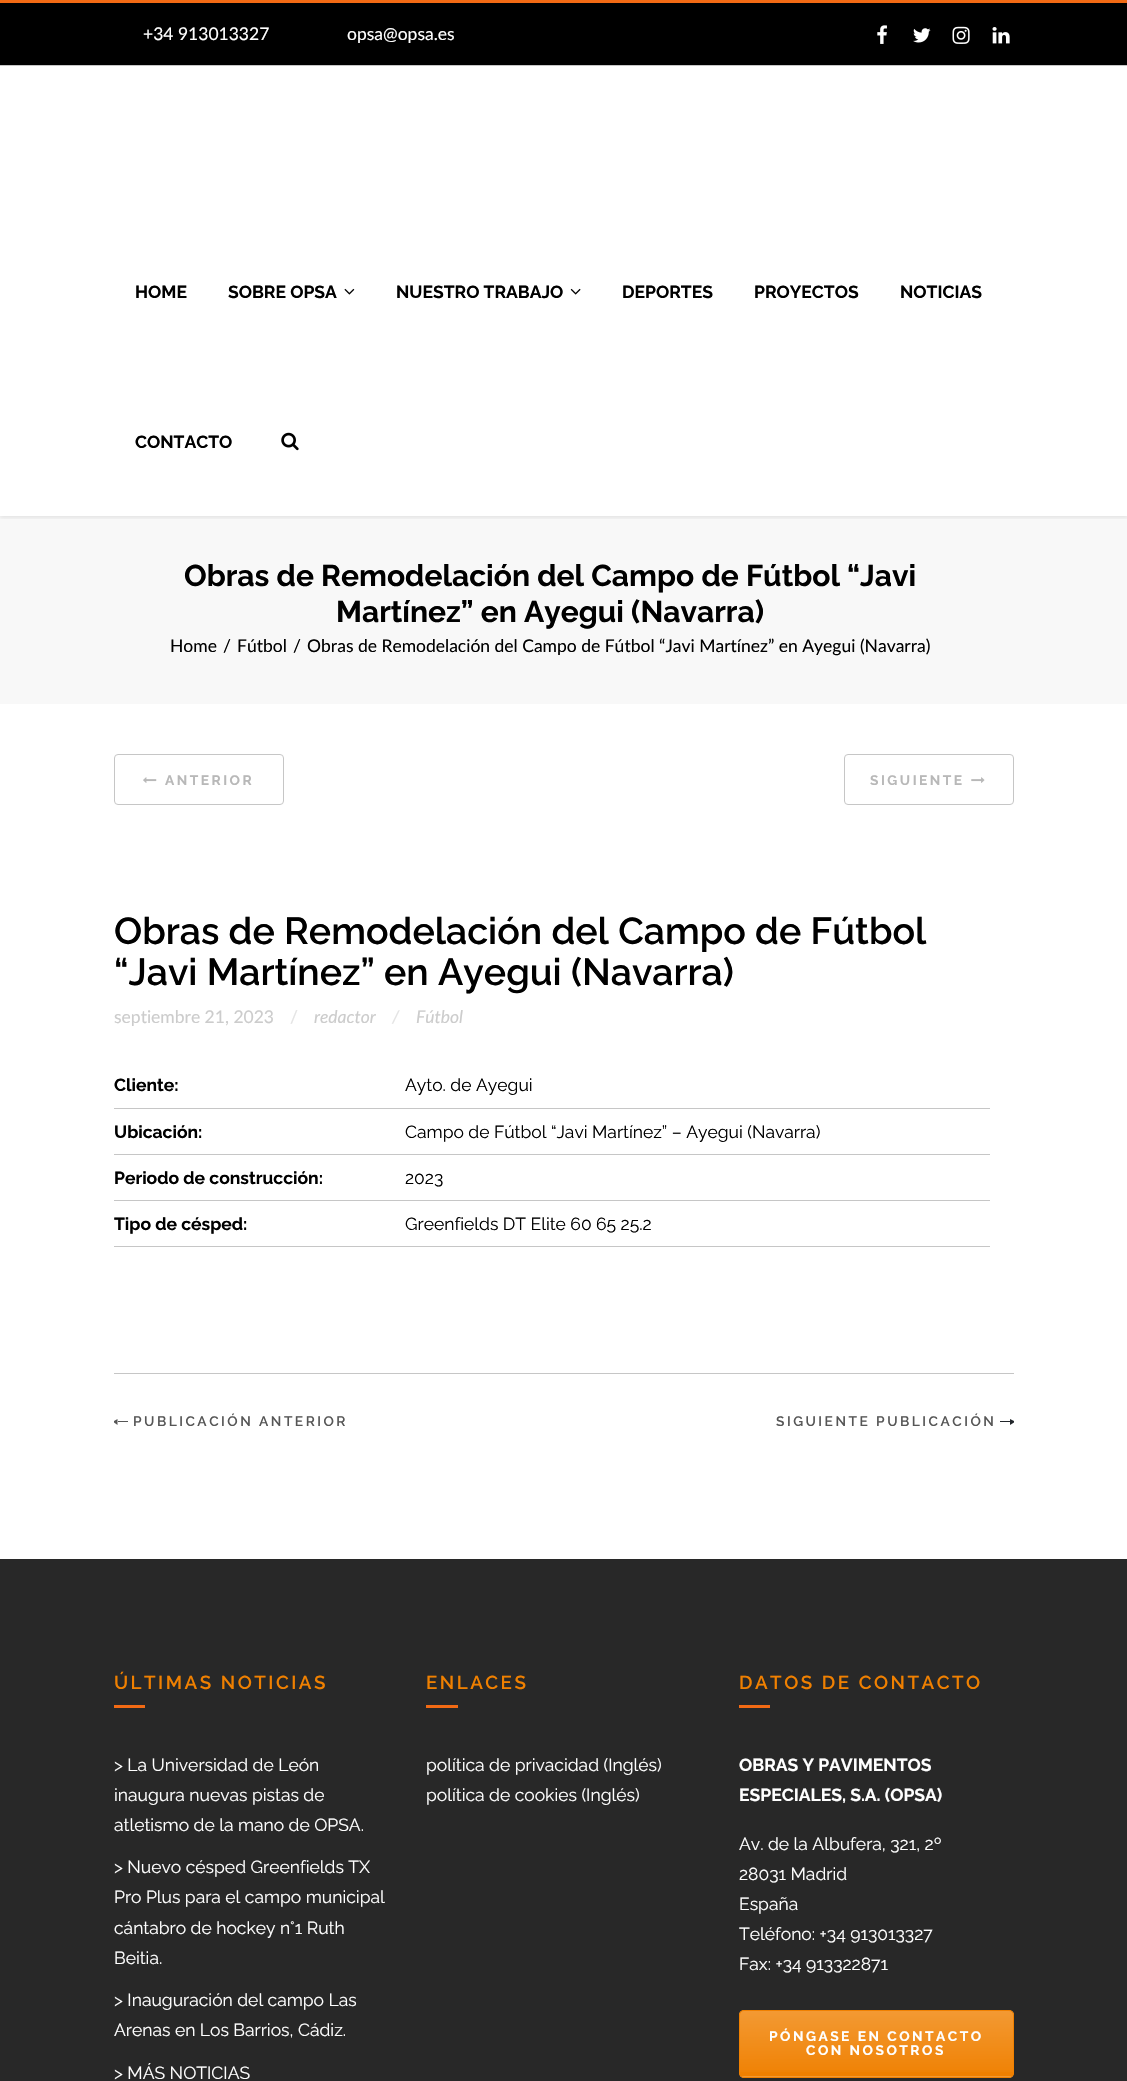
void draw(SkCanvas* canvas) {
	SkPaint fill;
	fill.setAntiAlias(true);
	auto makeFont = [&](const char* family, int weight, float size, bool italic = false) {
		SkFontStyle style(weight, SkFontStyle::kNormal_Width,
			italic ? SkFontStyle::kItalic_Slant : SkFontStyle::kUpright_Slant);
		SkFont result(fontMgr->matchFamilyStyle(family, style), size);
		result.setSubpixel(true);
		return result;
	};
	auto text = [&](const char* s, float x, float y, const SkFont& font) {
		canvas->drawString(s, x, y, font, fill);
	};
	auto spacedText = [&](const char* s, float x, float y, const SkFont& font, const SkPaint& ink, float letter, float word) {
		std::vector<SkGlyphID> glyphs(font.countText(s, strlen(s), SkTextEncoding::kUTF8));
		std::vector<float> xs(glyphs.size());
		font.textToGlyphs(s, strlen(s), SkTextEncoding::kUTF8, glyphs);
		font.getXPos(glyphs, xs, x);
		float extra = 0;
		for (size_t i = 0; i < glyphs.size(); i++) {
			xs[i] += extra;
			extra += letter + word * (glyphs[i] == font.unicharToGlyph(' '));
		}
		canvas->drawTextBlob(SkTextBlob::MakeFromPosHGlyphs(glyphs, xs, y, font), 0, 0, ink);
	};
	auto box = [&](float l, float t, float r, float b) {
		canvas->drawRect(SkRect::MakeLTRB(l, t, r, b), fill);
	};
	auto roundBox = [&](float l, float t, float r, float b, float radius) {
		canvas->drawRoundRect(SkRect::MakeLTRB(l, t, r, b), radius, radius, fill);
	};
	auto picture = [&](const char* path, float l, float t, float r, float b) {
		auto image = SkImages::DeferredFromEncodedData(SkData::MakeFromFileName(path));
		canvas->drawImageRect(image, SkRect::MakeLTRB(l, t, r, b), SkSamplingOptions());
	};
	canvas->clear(0xFFFFFFFF);
	fill.setColor(0xFFF8F8F8);
	box(0, 516, 1127, 704);
	canvas->save();
	canvas->clipRect(SkRect::MakeLTRB(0, 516, 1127, 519));
	fill.setColor(0x14000000);
	fill.setMaskFilter(SkMaskFilter::MakeBlur(kNormal_SkBlurStyle, 2));
	canvas->drawRect(SkRect::MakeLTRB(0, 1, 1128, 518), fill);
	fill.setMaskFilter(nullptr);
	canvas->restore();
	fill.setColor(0xFFF26A14);
	box(0, 0, 1127, 3);
	fill.setColor(0xFF000000);
	box(0, 3, 1127, 65);
	fill.setColor(0xFFC6C6C6);
	box(0, 65, 1127, 66);
	picture("image0.png", 877, 25, 887, 44);
	picture("image1.png", 913, 28, 931, 43);
	picture("image2.png", 952, 26, 970, 44);
	picture("image3.png", 992, 27, 1010, 44);
	picture("image4.png", 344, 288, 355, 295);
	picture("image5.png", 570, 288, 581, 295);
	picture("image6.png", 281, 432, 299, 451);
	fill.setStyle(SkPaint::kStroke_Style);
	fill.setStrokeWidth(1);
	canvas->drawRoundRect(SkRect::MakeLTRB(114.5f, 754.5f, 283.5f, 804.5f), 3.5f, 3.5f, fill);
	picture("image7.png", 143, 777, 157, 783);
	canvas->drawRoundRect(SkRect::MakeLTRB(844.5f, 754.5f, 1013.5f, 804.5f), 3.5f, 3.5f, fill);
	picture("image8.png", 971, 777, 985, 783);
	fill.setStyle(SkPaint::kFill_Style);
	box(114, 1108, 990, 1109);
	box(114, 1154, 990, 1155);
	box(114, 1200, 990, 1201);
	box(114, 1246, 990, 1247);
	box(114, 1373, 1014, 1374);
	fill.setColor(0xFF565656);
	canvas->drawPath(SkPathBuilder().moveTo(117.5f, 1419).lineTo(117.5f, 1425).lineTo(114, 1422.5f).lineTo(114, 1421).close().detach(), fill);
	box(118, 1421, 128, 1422);
	fill.setColor(0xFF22262B);
	box(1000, 1421, 1010, 1422);
	canvas->drawPath(SkPathBuilder().moveTo(1010, 1425).lineTo(1010, 1419).lineTo(1014, 1421).lineTo(1014, 1422.5f).close().detach(), fill);
	fill.setColor(0xFF282828);
	box(0, 1559, 1127, 2081);
	fill.setColor(0xFFF26A14);
	box(114, 1705, 145, 1708);
	box(426, 1705, 458, 1708);
	box(739, 1705, 770, 1708);
	fill.setColor(0xFFF08000);
	roundBox(739, 2010, 1014, 2078, 5);
	canvas->save();
	canvas->clipPath(SkPathBuilder().moveTo(744, 2010).lineTo(1009, 2010).cubicTo(1012, 2010, 1014, 2012, 1014, 2015).lineTo(1014, 2073).cubicTo(1014, 2076, 1012, 2078, 1009, 2078).lineTo(744, 2078).cubicTo(741, 2078, 739, 2076, 739, 2073).lineTo(739, 2015).cubicTo(739, 2012, 741, 2010, 744, 2010).close().detach(), true);
	{
		const SkColor colors[] = {0x33FFFFFF, 0x03FFFFFF};
		const float stops[] = {0, 1};
		const SkPoint ends[] = {{876, 2011}, {876, 2076}};
		fill.setShader(SkGradientShader::MakeLinear(ends, colors, stops, 2, SkTileMode::kClamp));
		fill.setAlpha(255);
	}
	box(739, 2011, 1014, 2072);
	{
		const SkColor colors[] = {0x33FFFFFF, 0x03FFFFFF};
		const float stops[] = {0, 1};
		const SkPoint ends[] = {{876, 2076}, {876, 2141}};
		fill.setShader(SkGradientShader::MakeLinear(ends, colors, stops, 2, SkTileMode::kClamp));
		fill.setAlpha(255);
	}
	box(739, 2076, 1014, 2078);
	canvas->restore();
	fill.setStyle(SkPaint::kStroke_Style);
	fill.setShader(nullptr);
	fill.setColor(0xFFF08000);
	canvas->drawRoundRect(SkRect::MakeLTRB(739.5f, 2010.5f, 1013.5f, 2077.5f), 4.5f, 4.5f, fill);
	auto font1 = makeFont("Lato", 400, 17.5f);
	fill.setStyle(SkPaint::kFill_Style);
	fill.setColor(0xFFFFFFFF);
	text("+34 913013327", 143, 40, font1);
	text("opsa@opsa.es", 347, 40, font1);
	auto font2 = makeFont("Raleway", 700, 17.5f);
	fill.setColor(0xFF000000);
	text("HOME", 135, 298, font2);
	text("SOBRE OPSA", 228, 298, font2);
	text("NUESTRO TRABAJO", 396, 298, font2);
	text("DEPORTES", 622, 298, font2);
	text("PROYECTOS", 754, 298, font2);
	text("NOTICIAS", 900, 298, font2);
	text("CONTACTO", 135, 448, font2);
	auto font3 = makeFont("Raleway", 700, 30);
	text("Obras de Remodelación del Campo de Fútbol “Javi", 184, 586, font3);
	text("Martínez” en Ayegui (Navarra)", 336, 622, font3);
	text("Home", 170, 652, font1);
	text("/", 223, 652, font1);
	text("Fútbol", 237, 652, font1);
	text("/", 293, 652, font1);
	text("Obras de Remodelación del Campo de Fútbol “Javi Martínez” en Ayegui (Navarra)", 307, 652, font1);
	auto font4 = makeFont("Raleway", 700, 13.75f);
	fill.setColor(0xFFB8B8B8);
	spacedText("ANTERIOR", 165, 785, font4, fill, 2.5f, 0);
	spacedText("SIGUIENTE", 870, 785, font4, fill, 2.5f, 0);
	auto font5 = makeFont("Raleway", 600, 37.5f);
	fill.setColor(0xFF000000);
	text("Obras de Remodelación del Campo de Fútbol", 114, 944, font5);
	text("“Javi Martínez” en Ayegui (Navarra)", 114, 985, font5);
	fill.setColor(0xFFCCCCCC);
	text("septiembre 21, 2023", 114, 1023, font1);
	fill.setColor(0xFFE4E4E4);
	text("/", 290, 1023, font1);
	auto font6 = makeFont("Lato", 400, 17.5f, true);
	fill.setColor(0xFFCCCCCC);
	text("redactor", 314, 1023, font6);
	fill.setColor(0xFFE4E4E4);
	text("/", 392, 1023, font6);
	fill.setColor(0xFFCCCCCC);
	text("Fútbol", 416, 1023, font6);
	fill.setColor(0xFF000000);
	text("Cliente:", 114, 1091, font2);
	auto font7 = makeFont("Raleway", 400, 17.5f);
	text("Ayto. de Ayegui", 405, 1091, font7);
	text("Ubicación:", 114, 1138, font2);
	text("Campo de Fútbol “Javi Martínez” – Ayegui (Navarra)", 405, 1138, font7);
	text("Periodo de construcción:", 114, 1184, font2);
	text("2023", 405, 1184, font7);
	text("Tipo de césped:", 114, 1230, font2);
	text("Greenfields DT Elite 60 65 25.2", 405, 1230, font7);
	auto font8 = makeFont("Raleway", 600, 13.75f);
	fill.setColor(0xFF565656);
	spacedText("PUBLICACIÓN ANTERIOR", 133, 1426, font8, fill, 2.5f, 0);
	spacedText("SIGUIENTE PUBLICACIÓN", 776, 1426, font8, fill, 2.5f, 0);
	auto font9 = makeFont("Raleway", 600, 18.75f);
	fill.setColor(0xFFF08000);
	spacedText("ÚLTIMAS NOTICIAS", 114, 1689, font9, fill, 2.5f, 0);
	fill.setColor(0xFFFFFFFF);
	text("> La Universidad de León", 114, 1771, font7);
	text("inaugura nuevas pistas de", 114, 1801, font7);
	text("atletismo de la mano de OPSA.", 114, 1831, font7);
	text("> Nuevo césped Greenfields TX", 114, 1873, font7);
	text("Pro Plus para el campo municipal", 114, 1903, font7);
	text("cántabro de hockey n°1 Ruth", 114, 1934, font7);
	text("Beitia.", 114, 1964, font7);
	text("> Inauguración del campo Las", 114, 2006, font7);
	text("Arenas en Los Barrios, Cádiz.", 114, 2036, font7);
	text("> MÁS NOTICIAS", 114, 2079, font7);
	fill.setColor(0xFFF08000);
	spacedText("ENLACES", 426, 1689, font9, fill, 2.5f, 0);
	fill.setColor(0xFFFFFFFF);
	text("política de privacidad (Inglés)", 426, 1771, font7);
	text("política de cookies (Inglés)", 426, 1801, font7);
	fill.setColor(0xFFF08000);
	spacedText("DATOS DE CONTACTO", 739, 1689, font9, fill, 2.5f, 0);
	fill.setColor(0xFFFFFFFF);
	text("OBRAS Y PAVIMENTOS", 739, 1771, font2);
	text("ESPECIALES, S.A. (OPSA)", 739, 1801, font2);
	text("Av. de la Albufera, 321, 2º", 739, 1850, font7);
	text("28031 Madrid", 739, 1880, font7);
	text("España", 739, 1910, font7);
	text("Teléfono: +34 913013327", 739, 1940, font7);
	text("Fax: +34 913322871", 739, 1970, font7);
	spacedText("PÓNGASE EN CONTACTO", 769, 2041, font4, fill, 2.5f, 0);
	spacedText("CON NOSOTROS", 806, 2055, font4, fill, 2.5f, 0);
}
